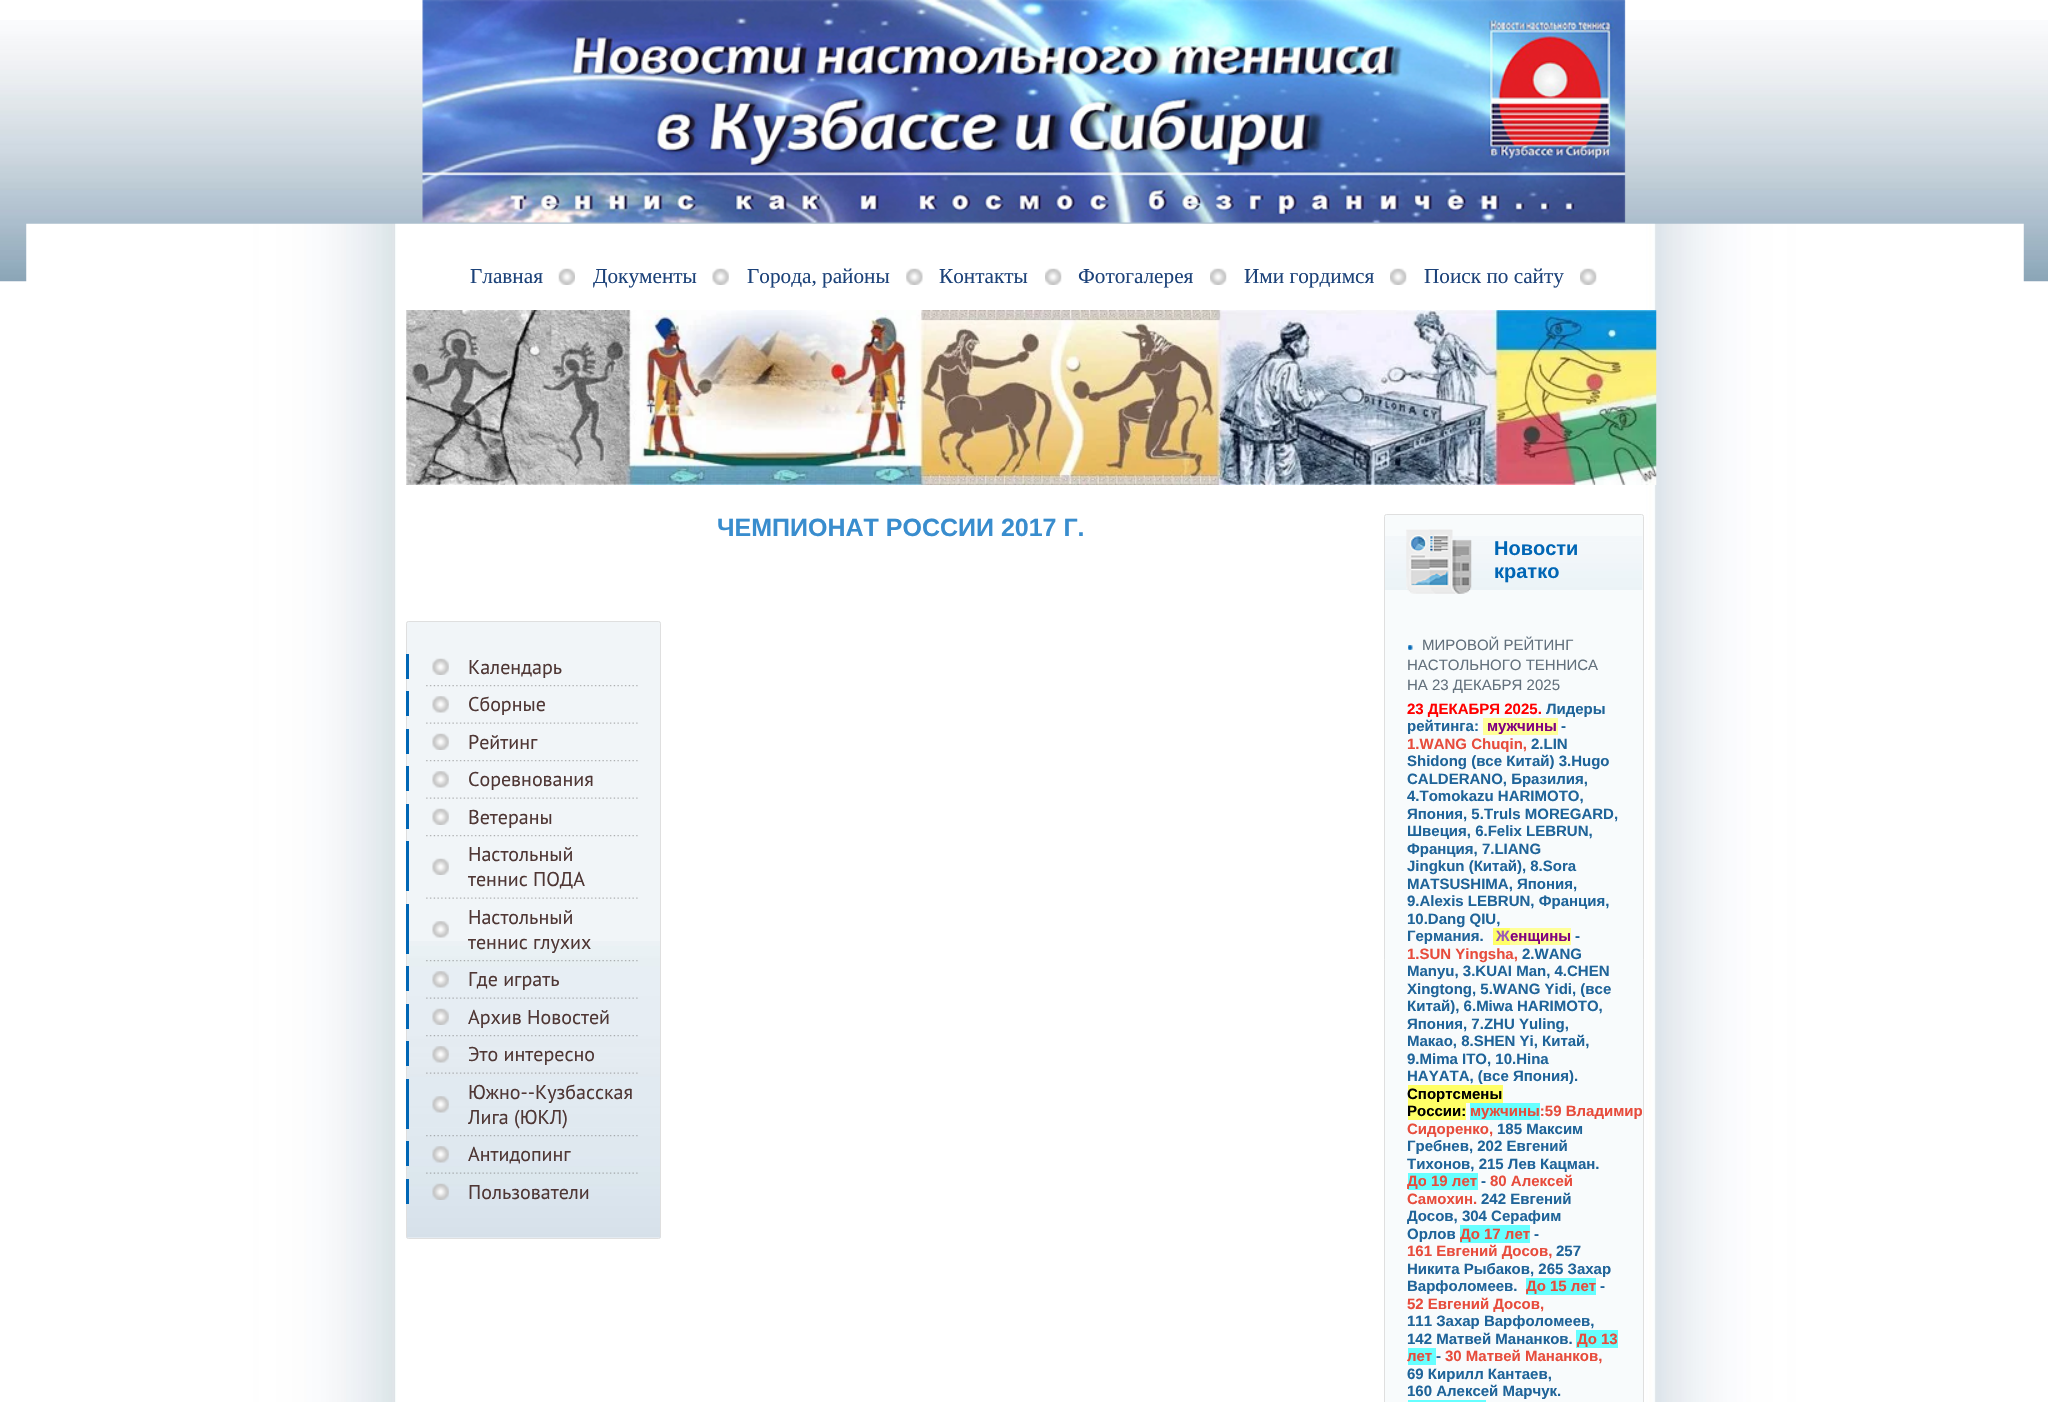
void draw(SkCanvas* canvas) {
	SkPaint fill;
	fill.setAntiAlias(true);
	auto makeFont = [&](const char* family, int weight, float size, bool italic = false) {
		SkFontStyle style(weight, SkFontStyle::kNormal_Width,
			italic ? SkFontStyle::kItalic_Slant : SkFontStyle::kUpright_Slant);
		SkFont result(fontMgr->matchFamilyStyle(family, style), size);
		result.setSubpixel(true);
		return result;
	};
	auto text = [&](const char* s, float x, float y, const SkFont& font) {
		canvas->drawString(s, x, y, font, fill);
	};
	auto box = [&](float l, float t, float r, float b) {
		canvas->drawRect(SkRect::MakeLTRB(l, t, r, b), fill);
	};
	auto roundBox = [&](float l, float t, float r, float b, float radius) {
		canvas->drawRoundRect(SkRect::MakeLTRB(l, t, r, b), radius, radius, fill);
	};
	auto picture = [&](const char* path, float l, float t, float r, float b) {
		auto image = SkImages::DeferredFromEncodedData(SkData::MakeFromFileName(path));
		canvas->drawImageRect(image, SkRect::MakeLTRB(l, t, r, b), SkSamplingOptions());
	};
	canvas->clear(0xFFFFFFFF);
	picture("image0.png", 0, 20, 2048, 282);
	picture("image1.png", 422, 0, 1626, 223);
	picture("image2.png", 26, 223, 2024, 1402);
	picture("image3.png", 558, 268, 575, 285);
	picture("image4.png", 712, 268, 729, 285);
	picture("image5.png", 906, 268, 923, 285);
	picture("image6.png", 1045, 268, 1062, 285);
	picture("image7.png", 1210, 268, 1227, 285);
	picture("image7.png", 1390, 268, 1407, 285);
	picture("image7.png", 1580, 268, 1597, 285);
	picture("image8.png", 406, 310, 1657, 485);
	fill.setColor(0xFFF1F5F8);
	roundBox(406, 621, 661, 1239, 2.5f);
	picture("image9.png", 406, 941, 661, 1238);
	fill.setStyle(SkPaint::kStroke_Style);
	fill.setStrokeWidth(1);
	fill.setColor(0xFFDFDFDF);
	canvas->drawRoundRect(SkRect::MakeLTRB(406.5f, 621.5f, 660.5f, 1238.5f), 2, 2, fill);
	picture("image10.png", 432, 658, 449, 675);
	fill.setStyle(SkPaint::kFill_Style);
	fill.setColor(0xFF0066B5);
	box(406, 654, 409, 679);
	picture("image11.png", 426, 685, 638, 687);
	picture("image12.png", 432, 696, 449, 713);
	box(406, 691, 409, 716);
	picture("image13.png", 426, 722, 638, 724);
	picture("image10.png", 432, 733, 449, 750);
	box(406, 729, 409, 754);
	picture("image11.png", 426, 760, 638, 762);
	picture("image12.png", 432, 771, 449, 788);
	box(406, 766, 409, 791);
	picture("image13.png", 426, 797, 638, 799);
	picture("image10.png", 432, 808, 449, 825);
	box(406, 804, 409, 829);
	picture("image11.png", 426, 835, 638, 837);
	picture("image10.png", 432, 858, 449, 875);
	box(406, 841, 409, 891);
	picture("image13.png", 426, 897, 638, 899);
	picture("image12.png", 432, 921, 449, 938);
	box(406, 904, 409, 954);
	picture("image14.png", 426, 960, 638, 962);
	picture("image15.png", 432, 971, 449, 988);
	box(406, 966, 409, 991);
	picture("image16.png", 426, 997, 638, 999);
	picture("image17.png", 432, 1008, 449, 1025);
	box(406, 1004, 409, 1029);
	picture("image18.png", 426, 1035, 638, 1037);
	picture("image19.png", 432, 1046, 449, 1063);
	box(406, 1041, 409, 1066);
	picture("image20.png", 426, 1072, 638, 1074);
	picture("image21.png", 432, 1096, 449, 1113);
	box(406, 1079, 409, 1129);
	picture("image22.png", 426, 1135, 638, 1137);
	picture("image23.png", 432, 1146, 449, 1163);
	box(406, 1141, 409, 1166);
	picture("image24.png", 426, 1172, 638, 1174);
	picture("image25.png", 432, 1183, 449, 1200);
	box(406, 1179, 409, 1204);
	fill.setColor(0xFFF8FBFC);
	canvas->drawRoundRect(SkRect::MakeLTRB(1384.5f, 514.5f, 1643.5f, 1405.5f), 2, 2, fill);
	fill.setStyle(SkPaint::kStroke_Style);
	fill.setColor(0xFFDFDFDF);
	canvas->drawRoundRect(SkRect::MakeLTRB(1384.5f, 514.5f, 1643.5f, 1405.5f), 2, 2, fill);
	picture("image26.png", 1385, 536, 1643, 590);
	picture("image27.png", 1406, 529, 1472, 594);
	picture("image28.png", 1408, 645, 1413, 650);
	fill.setStyle(SkPaint::kFill_Style);
	fill.setColor(0xFFFFFF99);
	box(1483, 718, 1558, 735);
	fill.setColor(0xFFFFFF66);
	box(1493, 928, 1510, 945);
	fill.setColor(0xFFFFFF99);
	box(1510, 928, 1571, 945);
	fill.setColor(0xFFFFFF66);
	box(1408, 1085, 1503, 1103);
	box(1408, 1103, 1466, 1120);
	fill.setColor(0xFF66FFFF);
	box(1470, 1103, 1540, 1120);
	box(1408, 1173, 1426, 1190);
	box(1460, 1225, 1530, 1243);
	box(1526, 1278, 1596, 1295);
	box(1576, 1330, 1618, 1348);
	box(1408, 1348, 1436, 1365);
	box(1408, 1400, 1486, 1402);
	auto font1 = makeFont("Liberation Serif", 400, 21.25f);
	fill.setColor(0xFF1C4279);
	text("Главная", 470, 283, font1);
	text("Документы", 593, 283, font1);
	text("Города, районы", 747, 283, font1);
	text("Контакты", 939, 283, font1);
	text("Фотогалерея", 1078, 283, font1);
	text("Ими гордимся", 1244, 283, font1);
	text("Поиск по сайту", 1424, 283, font1);
	auto font2 = makeFont("Liberation Sans", 700, 25);
	fill.setColor(0xFF398DCE);
	text("ЧЕМПИОНАТ РОССИИ 2017 Г.", 717, 536, font2);
	auto font3 = makeFont("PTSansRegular", 400, 20);
	fill.setColor(0xFF4F3735);
	text("Календарь", 468, 674, font3);
	text("Сборные", 468, 711, font3);
	text("Рейтинг", 468, 749, font3);
	text("Соревнования", 468, 786, font3);
	text("Ветераны", 468, 824, font3);
	text("Настольный", 468, 861, font3);
	text("теннис ПОДА", 468, 886, font3);
	text("Настольный", 468, 924, font3);
	text("теннис глухих", 468, 949, font3);
	text("Где играть", 468, 986, font3);
	text("Архив Новостей", 468, 1024, font3);
	text("Это интересно", 468, 1061, font3);
	text("Южно--Кузбасская", 468, 1099, font3);
	text("Лига (ЮКЛ)", 468, 1124, font3);
	text("Антидопинг", 468, 1161, font3);
	text("Пользователи", 468, 1199, font3);
	auto font4 = makeFont("Liberation Sans", 700, 20);
	fill.setColor(0xFF0066B5);
	text("Новости", 1494, 555, font4);
	text("кратко", 1494, 578, font4);
	auto font5 = makeFont("Liberation Sans", 400, 15);
	fill.setColor(0xFF63717D);
	text("МИРОВОЙ РЕЙТИНГ", 1422, 650, font5);
	text("НАСТОЛЬНОГО ТЕННИСА", 1407, 670, font5);
	text("НА 23 ДЕКАБРЯ 2025", 1407, 690, font5);
	auto font6 = makeFont("Liberation Sans", 700, 15);
	fill.setColor(0xFFFF0000);
	text("23 ДЕКАБРЯ 2025.", 1407, 714, font6);
	fill.setColor(0xFF1F6499);
	text("Лидеры", 1546, 714, font6);
	text("рейтинга:", 1407, 731, font6);
	fill.setColor(0xFF800080);
	text("мужчины", 1487, 731, font6);
	fill.setColor(0xFF1F6499);
	text("-", 1561, 731, font6);
	fill.setColor(0xFFE74C3C);
	text("1.WANG Chuqin,", 1407, 749, font6);
	fill.setColor(0xFF1F6499);
	text("2.LIN", 1531, 749, font6);
	text("Shidong (все Китай) 3.Hugo", 1407, 766, font6);
	text("CALDERANO, Бразилия,", 1407, 784, font6);
	text("4.Tomokazu HARIMOTO,", 1407, 801, font6);
	text("Япония, 5.Truls MOREGARD,", 1407, 819, font6);
	text("Швеция, 6.Felix LEBRUN,", 1407, 836, font6);
	text("Франция, 7.LIANG", 1407, 854, font6);
	text("Jingkun (Китай), 8.Sora", 1407, 871, font6);
	text("MATSUSHIMA, Япония,", 1407, 889, font6);
	text("9.Alexis LEBRUN, Франция,", 1407, 906, font6);
	text("10.Dang QIU,", 1407, 924, font6);
	text("Германия.", 1407, 941, font6);
	fill.setColor(0xFF9B59B6);
	text("Ж", 1496, 941, font6);
	fill.setColor(0xFF800080);
	text("енщины", 1510, 941, font6);
	fill.setColor(0xFF1F6499);
	text("-", 1575, 941, font6);
	fill.setColor(0xFFE74C3C);
	text("1.SUN Yingsha,", 1407, 959, font6);
	fill.setColor(0xFF1F6499);
	text("2.WANG", 1522, 959, font6);
	text("Manyu, 3.KUAI Man, 4.CHEN", 1407, 976, font6);
	text("Xingtong, 5.WANG Yidi, (все", 1407, 994, font6);
	text("Китай), 6.Miwa HARIMOTO,", 1407, 1011, font6);
	text("Япония, 7.ZHU Yuling,", 1407, 1029, font6);
	text("Макао, 8.SHEN Yi, Китай,", 1407, 1046, font6);
	text("9.Mima ITO, 10.Hina", 1407, 1064, font6);
	text("HAYATA, (все Япония).", 1407, 1081, font6);
	fill.setColor(0xFF000000);
	text("Спортсмены", 1407, 1099, font6);
	text("России:", 1407, 1116, font6);
	fill.setColor(0xFFE74C3C);
	text("мужчины:59 Владимир", 1470, 1116, font6);
	text("Сидоренко,", 1407, 1134, font6);
	fill.setColor(0xFF1F6499);
	text("185 Максим", 1497, 1134, font6);
	text("Гребнев, 202 Евгений", 1407, 1151, font6);
	text("Тихонов, 215 Лев Кацман.", 1407, 1169, font6);
	fill.setColor(0xFFE74C3C);
	text("До", 1407, 1186, font6);
	fill.setColor(0xFF66FFFF);
	box(1426, 1173, 1478, 1190);
	fill.setColor(0xFFE74C3C);
	text("19 лет", 1431, 1186, font6);
	fill.setColor(0xFF1F6499);
	text("-", 1481, 1186, font6);
	fill.setColor(0xFFE74C3C);
	text("80 Алексей", 1490, 1186, font6);
	text("Самохин.", 1407, 1204, font6);
	fill.setColor(0xFF1F6499);
	text("242 Евгений", 1481, 1204, font6);
	text("Досов, 304 Серафим", 1407, 1221, font6);
	text("Орлов", 1407, 1239, font6);
	fill.setColor(0xFFE74C3C);
	text("До 17 лет", 1460, 1239, font6);
	fill.setColor(0xFF1F6499);
	text("-", 1534, 1239, font6);
	fill.setColor(0xFFE74C3C);
	text("161 Евгений Досов,", 1407, 1256, font6);
	fill.setColor(0xFF1F6499);
	text("257", 1556, 1256, font6);
	text("Никита Рыбаков, 265 Захар", 1407, 1274, font6);
	text("Варфоломеев.", 1407, 1291, font6);
	fill.setColor(0xFFE74C3C);
	text("До 15 лет", 1526, 1291, font6);
	fill.setColor(0xFF1F6499);
	text("-", 1600, 1291, font6);
	fill.setColor(0xFFE74C3C);
	text("52 Евгений Досов,", 1407, 1309, font6);
	fill.setColor(0xFF1F6499);
	text("111 Захар Варфоломеев,", 1407, 1326, font6);
	text("142 Матвей Мананков.", 1407, 1344, font6);
	fill.setColor(0xFFE74C3C);
	text("До 13", 1577, 1344, font6);
	text("лет", 1407, 1361, font6);
	fill.setColor(0xFF1F6499);
	text("-", 1436, 1361, font6);
	fill.setColor(0xFFE74C3C);
	text("30 Матвей Мананков,", 1445, 1361, font6);
	fill.setColor(0xFF1F6499);
	text("69 Кирилл Кантаев,", 1407, 1379, font6);
	text("160 Алексей Марчук.", 1407, 1396, font6);
}
